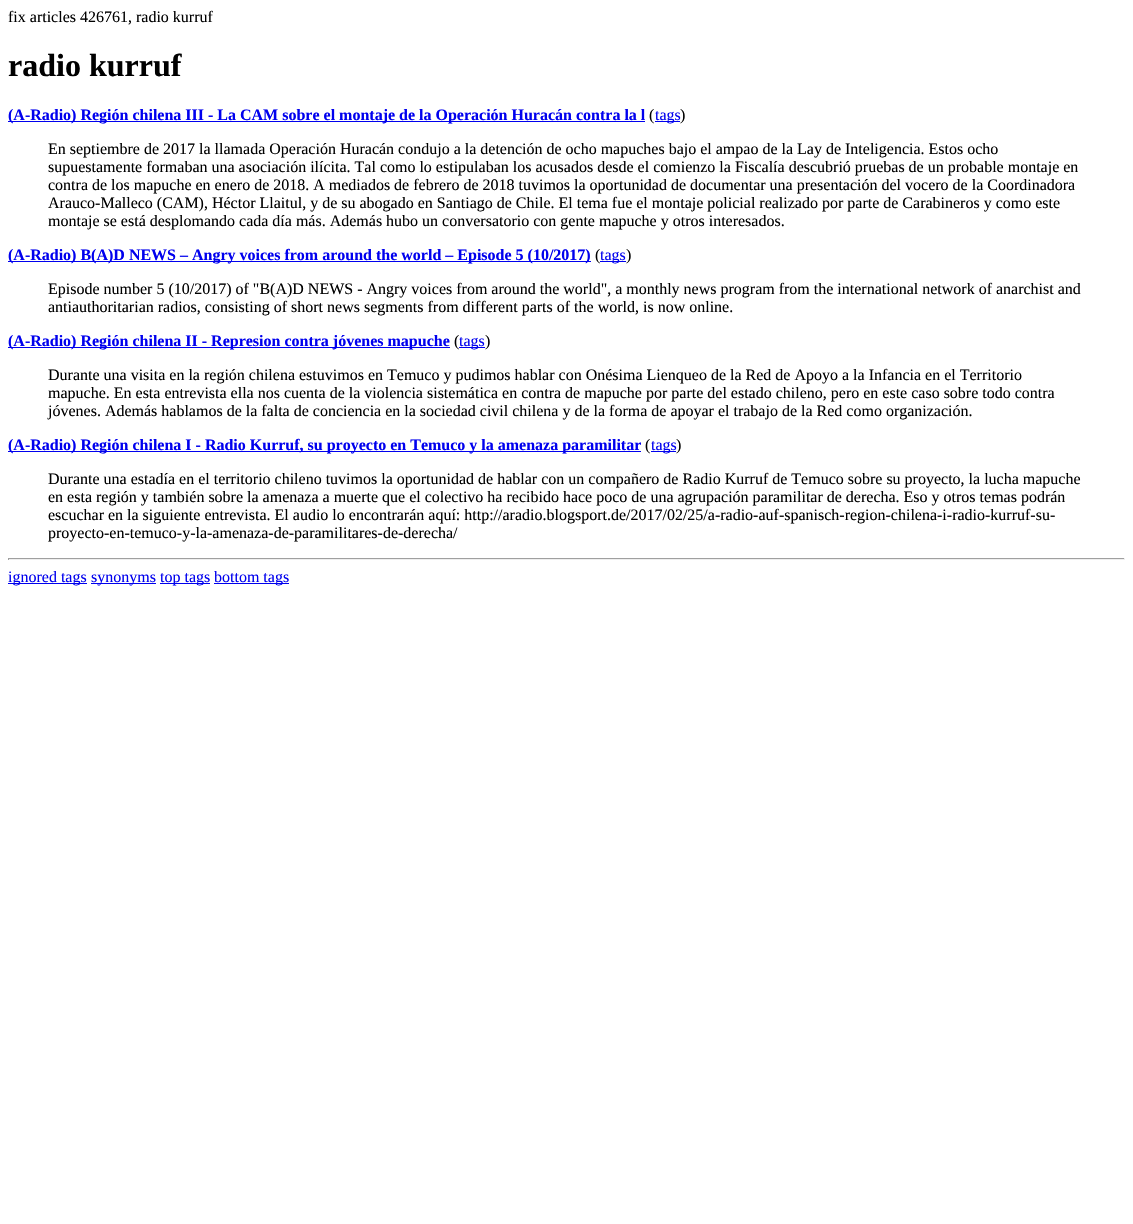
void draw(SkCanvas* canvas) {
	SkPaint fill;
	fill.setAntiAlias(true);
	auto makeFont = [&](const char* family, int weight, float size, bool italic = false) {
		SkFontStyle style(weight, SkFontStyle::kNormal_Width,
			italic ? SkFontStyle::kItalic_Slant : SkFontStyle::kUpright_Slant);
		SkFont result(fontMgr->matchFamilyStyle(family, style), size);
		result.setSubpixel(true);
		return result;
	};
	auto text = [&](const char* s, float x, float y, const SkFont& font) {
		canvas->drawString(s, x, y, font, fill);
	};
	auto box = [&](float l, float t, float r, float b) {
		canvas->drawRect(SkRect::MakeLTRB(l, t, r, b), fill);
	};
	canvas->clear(0xFFFFFFFF);
	fill.setColor(0xFF0000EE);
	box(8, 121, 645, 122);
	box(655, 121, 680, 122);
	box(8, 261, 591, 262);
	box(600, 261, 626, 262);
	box(8, 347, 450, 348);
	box(459, 347, 485, 348);
	box(8, 451, 641, 452);
	box(651, 451, 676, 452);
	fill.setColor(0xFF9F9F9F);
	box(8, 558, 1125, 559);
	fill.setColor(0xFFEEEEEE);
	box(1124, 558, 1125, 560);
	box(8, 559, 1125, 560);
	fill.setColor(0xFF9F9F9F);
	box(8, 558, 9, 560);
	fill.setColor(0xFF0000EE);
	box(8, 583, 87, 584);
	box(91, 583, 156, 584);
	box(160, 583, 210, 584);
	box(214, 583, 289, 584);
	auto font1 = makeFont("Liberation Serif", 400, 16);
	fill.setColor(0xFF000000);
	text("fix articles 426761, radio kurruf", 8, 22, font1);
	auto font2 = makeFont("Liberation Serif", 700, 32);
	text("radio kurruf", 8, 76, font2);
	auto font3 = makeFont("Liberation Serif", 700, 16);
	fill.setColor(0xFF0000EE);
	text("(A-Radio) Región chilena III - La CAM sobre el montaje de la Operación Huracán contra la l", 8, 120, font3);
	fill.setColor(0xFF000000);
	text("(", 649, 120, font1);
	fill.setColor(0xFF0000EE);
	text("tags", 655, 120, font1);
	fill.setColor(0xFF000000);
	text(")", 680, 120, font1);
	text("En septiembre de 2017 la llamada Operación Huracán condujo a la detención de ocho mapuches bajo el ampao de la Lay de Inteligencia. Estos ocho", 48, 154, font1);
	text("supuestamente formaban una asociación ilícita. Tal como lo estipulaban los acusados desde el comienzo la Fiscalía descubrió pruebas de un probable montaje en", 48, 172, font1);
	text("contra de los mapuche en enero de 2018. A mediados de febrero de 2018 tuvimos la oportunidad de documentar una presentación del vocero de la Coordinadora", 48, 190, font1);
	text("Arauco-Malleco (CAM), Héctor Llaitul, y de su abogado en Santiago de Chile. El tema fue el montaje policial realizado por parte de Carabineros y como este", 48, 208, font1);
	text("montaje se está desplomando cada día más. Además hubo un conversatorio con gente mapuche y otros interesados.", 48, 226, font1);
	fill.setColor(0xFF0000EE);
	text("(A-Radio) B(A)D NEWS – Angry voices from around the world – Episode 5 (10/2017)", 8, 260, font3);
	fill.setColor(0xFF000000);
	text("(", 595, 260, font1);
	fill.setColor(0xFF0000EE);
	text("tags", 600, 260, font1);
	fill.setColor(0xFF000000);
	text(")", 626, 260, font1);
	text("Episode number 5 (10/2017) of \"B(A)D NEWS - Angry voices from around the world\", a monthly news program from the international network of anarchist and", 48, 294, font1);
	text("antiauthoritarian radios, consisting of short news segments from different parts of the world, is now online.", 48, 312, font1);
	fill.setColor(0xFF0000EE);
	text("(A-Radio) Región chilena II - Represion contra jóvenes mapuche", 8, 346, font3);
	fill.setColor(0xFF000000);
	text("(", 454, 346, font1);
	fill.setColor(0xFF0000EE);
	text("tags", 459, 346, font1);
	fill.setColor(0xFF000000);
	text(")", 485, 346, font1);
	text("Durante una visita en la región chilena estuvimos en Temuco y pudimos hablar con Onésima Lienqueo de la Red de Apoyo a la Infancia en el Territorio", 48, 380, font1);
	text("mapuche. En esta entrevista ella nos cuenta de la violencia sistemática en contra de mapuche por parte del estado chileno, pero en este caso sobre todo contra", 48, 398, font1);
	text("jóvenes. Además hablamos de la falta de conciencia en la sociedad civil chilena y de la forma de apoyar el trabajo de la Red como organización.", 48, 416, font1);
	fill.setColor(0xFF0000EE);
	text("(A-Radio) Región chilena I - Radio Kurruf, su proyecto en Temuco y la amenaza paramilitar", 8, 450, font3);
	fill.setColor(0xFF000000);
	text("(", 645, 450, font1);
	fill.setColor(0xFF0000EE);
	text("tags", 651, 450, font1);
	fill.setColor(0xFF000000);
	text(")", 676, 450, font1);
	text("Durante una estadía en el territorio chileno tuvimos la oportunidad de hablar con un compañero de Radio Kurruf de Temuco sobre su proyecto, la lucha mapuche", 48, 484, font1);
	text("en esta región y también sobre la amenaza a muerte que el colectivo ha recibido hace poco de una agrupación paramilitar de derecha. Eso y otros temas podrán", 48, 502, font1);
	text("escuchar en la siguiente entrevista. El audio lo encontrarán aquí: http://aradio.blogsport.de/2017/02/25/a-radio-auf-spanisch-region-chilena-i-radio-kurruf-su-", 48, 520, font1);
	text("proyecto-en-temuco-y-la-amenaza-de-paramilitares-de-derecha/", 48, 538, font1);
	fill.setColor(0xFF0000EE);
	text("ignored tags", 8, 582, font1);
	text("synonyms", 91, 582, font1);
	text("top tags", 160, 582, font1);
	text("bottom tags", 214, 582, font1);
}
